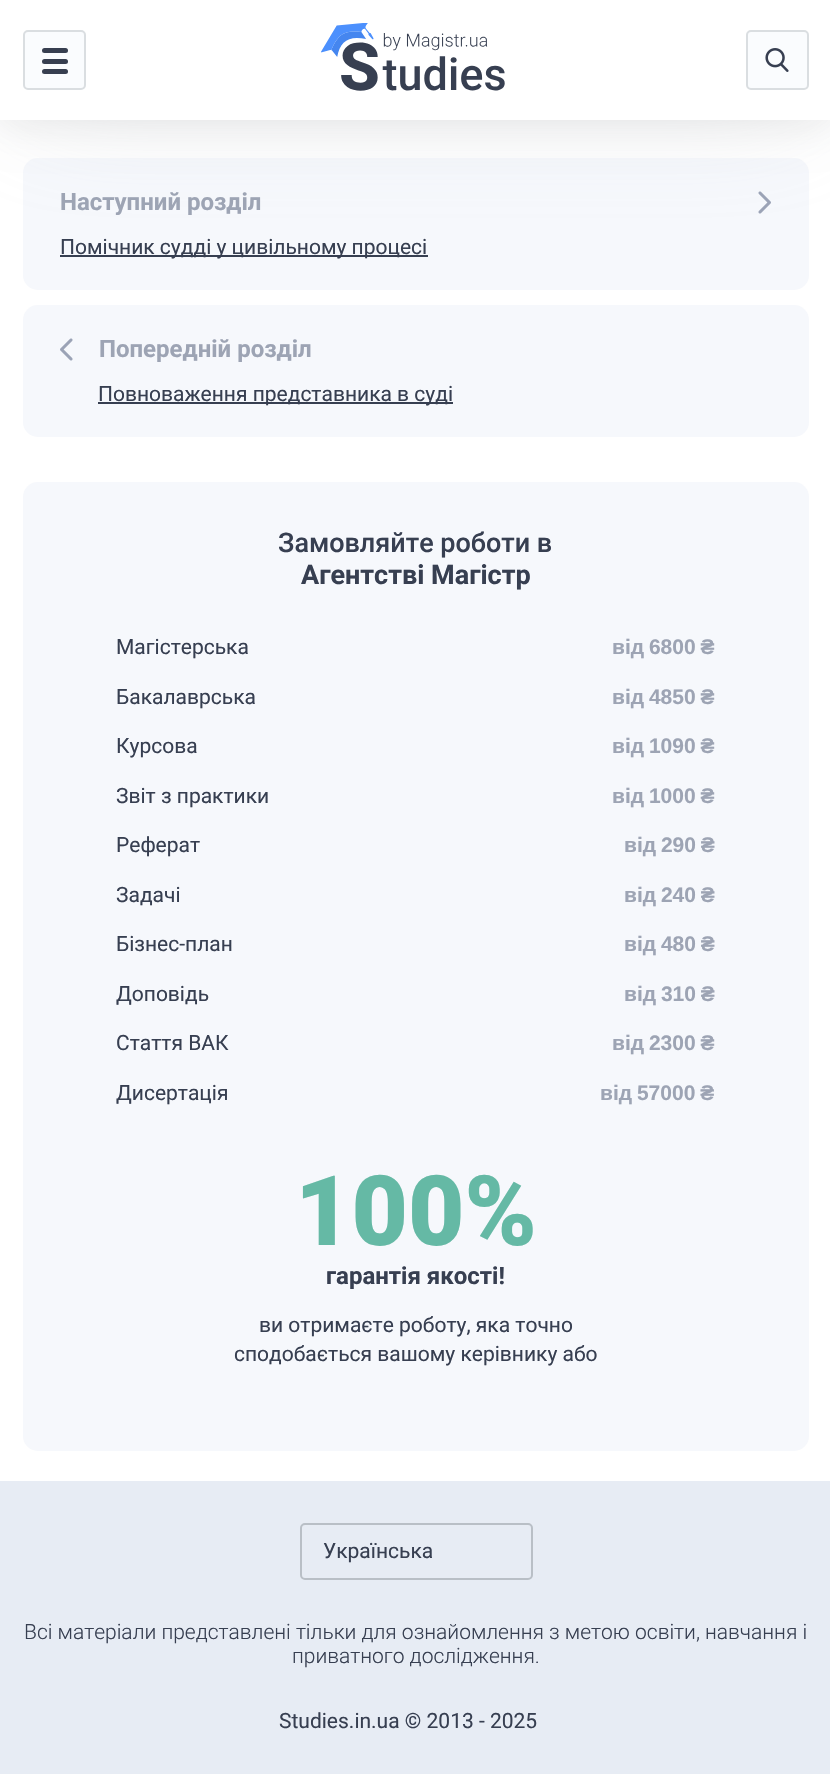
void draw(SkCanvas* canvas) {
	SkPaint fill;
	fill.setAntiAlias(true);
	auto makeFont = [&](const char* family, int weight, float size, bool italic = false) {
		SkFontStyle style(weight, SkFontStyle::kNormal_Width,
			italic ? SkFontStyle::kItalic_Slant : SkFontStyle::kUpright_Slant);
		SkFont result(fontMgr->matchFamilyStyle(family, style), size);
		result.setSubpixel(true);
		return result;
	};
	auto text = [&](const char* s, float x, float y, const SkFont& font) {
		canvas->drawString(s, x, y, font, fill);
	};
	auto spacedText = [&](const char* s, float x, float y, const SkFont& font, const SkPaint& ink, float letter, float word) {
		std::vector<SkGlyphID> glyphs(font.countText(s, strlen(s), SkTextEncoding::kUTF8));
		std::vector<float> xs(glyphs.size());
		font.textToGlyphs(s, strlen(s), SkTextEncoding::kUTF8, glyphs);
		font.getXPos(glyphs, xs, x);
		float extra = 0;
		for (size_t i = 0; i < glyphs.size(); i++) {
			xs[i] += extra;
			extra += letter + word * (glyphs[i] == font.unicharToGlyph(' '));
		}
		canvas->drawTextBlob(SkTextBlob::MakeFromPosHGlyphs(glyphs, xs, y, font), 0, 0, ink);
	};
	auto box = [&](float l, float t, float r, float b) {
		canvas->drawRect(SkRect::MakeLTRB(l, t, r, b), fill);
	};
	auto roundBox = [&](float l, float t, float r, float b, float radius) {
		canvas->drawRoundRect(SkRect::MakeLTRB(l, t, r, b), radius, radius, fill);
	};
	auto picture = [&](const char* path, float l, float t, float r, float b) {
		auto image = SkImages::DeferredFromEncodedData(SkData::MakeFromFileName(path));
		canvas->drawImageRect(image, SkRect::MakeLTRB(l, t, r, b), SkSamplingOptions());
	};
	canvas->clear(0xFFFFFFFF);
	fill.setColor(0xFFF6F8FC);
	roundBox(23, 158, 809, 290, 15);
	fill.setColor(0x1A000000);
	fill.setMaskFilter(SkMaskFilter::MakeBlur(kNormal_SkBlurStyle, 22.5f));
	canvas->drawRect(SkRect::MakeLTRB(0, 0, 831, 120), fill);
	fill.setMaskFilter(nullptr);
	fill.setColor(0xFF373F51);
	box(60, 255, 428, 257);
	fill.setColor(0x4DBEC3CC);
	fill.setMaskFilter(SkMaskFilter::MakeBlur(kNormal_SkBlurStyle, 60));
	canvas->drawRoundRect(SkRect::MakeLTRB(23, -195, 809, 98), 15, 15, fill);
	fill.setMaskFilter(nullptr);
	fill.setColor(0xFFFFFFFF);
	box(0, 0, 830, 120);
	fill.setColor(0xFFFAFCFE);
	canvas->drawRoundRect(SkRect::MakeLTRB(24, 31, 85, 89), 4, 4, fill);
	fill.setStyle(SkPaint::kStroke_Style);
	fill.setStrokeWidth(2);
	fill.setColor(0xFFDADEE1);
	canvas->drawRoundRect(SkRect::MakeLTRB(24, 31, 85, 89), 4, 4, fill);
	fill.setStyle(SkPaint::kFill_Style);
	fill.setColor(0xFF373F50);
	roundBox(42, 48, 68, 53, 2.5f);
	roundBox(42, 59, 68, 64, 2.5f);
	roundBox(42, 69, 68, 74, 2.5f);
	picture("image0.png", 321, 23, 505, 91);
	fill.setColor(0xFFFAFCFE);
	canvas->drawRoundRect(SkRect::MakeLTRB(747, 31, 808, 89), 4, 4, fill);
	fill.setStyle(SkPaint::kStroke_Style);
	fill.setColor(0xFFDADEE1);
	canvas->drawRoundRect(SkRect::MakeLTRB(747, 31, 808, 89), 4, 4, fill);
	picture("image1.png", 765, 48, 789, 72);
	picture("image2.png", 758, 191, 771, 214);
	fill.setStyle(SkPaint::kFill_Style);
	fill.setColor(0xFFF6F8FC);
	roundBox(23, 305, 809, 437, 15);
	picture("image3.png", 60, 338, 73, 361);
	fill.setColor(0xFF373F51);
	box(98, 402, 453, 404);
	fill.setColor(0xFFF6F8FC);
	roundBox(23, 482, 809, 1451, 15);
	fill.setColor(0xFFE7ECF4);
	box(0, 1481, 830, 1774);
	fill.setStyle(SkPaint::kStroke_Style);
	fill.setColor(0xFFB9BFC6);
	canvas->drawRoundRect(SkRect::MakeLTRB(301, 1524, 532, 1579), 4, 4, fill);
	auto font1 = makeFont("Roboto", 700, 24);
	fill.setStyle(SkPaint::kFill_Style);
	fill.setColor(0xFF9DA4B4);
	text("Наступний розділ", 60, 210, font1);
	auto font2 = makeFont("Roboto", 400, 21);
	fill.setColor(0xFF373F51);
	text("Помічник судді у цивільному процесі", 60, 254, font2);
	fill.setColor(0xFF9DA4B4);
	text("Попередній розділ", 99, 357, font1);
	fill.setColor(0xFF373F51);
	text("Повноваження представника в суді", 98, 401, font2);
	auto font3 = makeFont("Roboto", 500, 27);
	text("Замовляйте роботи в", 278, 552, font3);
	auto font4 = makeFont("Roboto", 700, 27);
	text("Агентстві Магістр", 301, 584, font4);
	text("Магістерська", 116, 654, font2);
	auto font5 = makeFont("Liberation Sans", 700, 21);
	fill.setColor(0xFF9DA4B4);
	spacedText("від 6800 ₴", 612, 654, font5, fill, 0, -1);
	fill.setColor(0xFF373F51);
	text("Бакалаврська", 116, 704, font2);
	fill.setColor(0xFF9DA4B4);
	spacedText("від 4850 ₴", 612, 704, font5, fill, 0, -1);
	fill.setColor(0xFF373F51);
	text("Курсова", 116, 753, font2);
	fill.setColor(0xFF9DA4B4);
	spacedText("від 1090 ₴", 612, 753, font5, fill, 0, -1);
	fill.setColor(0xFF373F51);
	text("Звіт з практики", 116, 803, font2);
	fill.setColor(0xFF9DA4B4);
	spacedText("від 1000 ₴", 612, 803, font5, fill, 0, -1);
	fill.setColor(0xFF373F51);
	text("Реферат", 116, 852, font2);
	fill.setColor(0xFF9DA4B4);
	spacedText("від 290 ₴", 624, 852, font5, fill, 0, -1);
	fill.setColor(0xFF373F51);
	text("Задачі", 116, 902, font2);
	fill.setColor(0xFF9DA4B4);
	spacedText("від 240 ₴", 624, 902, font5, fill, 0, -1);
	fill.setColor(0xFF373F51);
	text("Бізнес-план", 116, 951, font2);
	fill.setColor(0xFF9DA4B4);
	spacedText("від 480 ₴", 624, 951, font5, fill, 0, -1);
	fill.setColor(0xFF373F51);
	text("Доповідь", 116, 1001, font2);
	fill.setColor(0xFF9DA4B4);
	spacedText("від 310 ₴", 624, 1001, font5, fill, 0, -1);
	fill.setColor(0xFF373F51);
	text("Стаття ВАК", 116, 1050, font2);
	fill.setColor(0xFF9DA4B4);
	spacedText("від 2300 ₴", 612, 1050, font5, fill, 0, -1);
	fill.setColor(0xFF373F51);
	text("Дисертація", 116, 1100, font2);
	fill.setColor(0xFF9DA4B4);
	spacedText("від 57000 ₴", 600, 1100, font5, fill, 0, -1);
	auto font6 = makeFont("Roboto", 900, 97.5f);
	fill.setColor(0xFF65B9A5);
	text("100%", 295, 1245, font6);
	fill.setColor(0xFF373F51);
	text("гарантія якості!", 326, 1284, font1);
	text("ви отримаєте роботу, яка точно", 259, 1332, font2);
	text("сподобається вашому керівнику або", 234, 1361, font2);
	text("Українська", 323, 1558, font2);
	auto font7 = makeFont("Roboto", 300, 21);
	text("Всі матеріали представлені тільки для ознайомлення з метою освіти, навчання і", 24, 1639, font7);
	text("приватного дослідження.", 292, 1663, font7);
	text("Studies.in.ua © 2013 - 2025", 279, 1728, font2);
}
